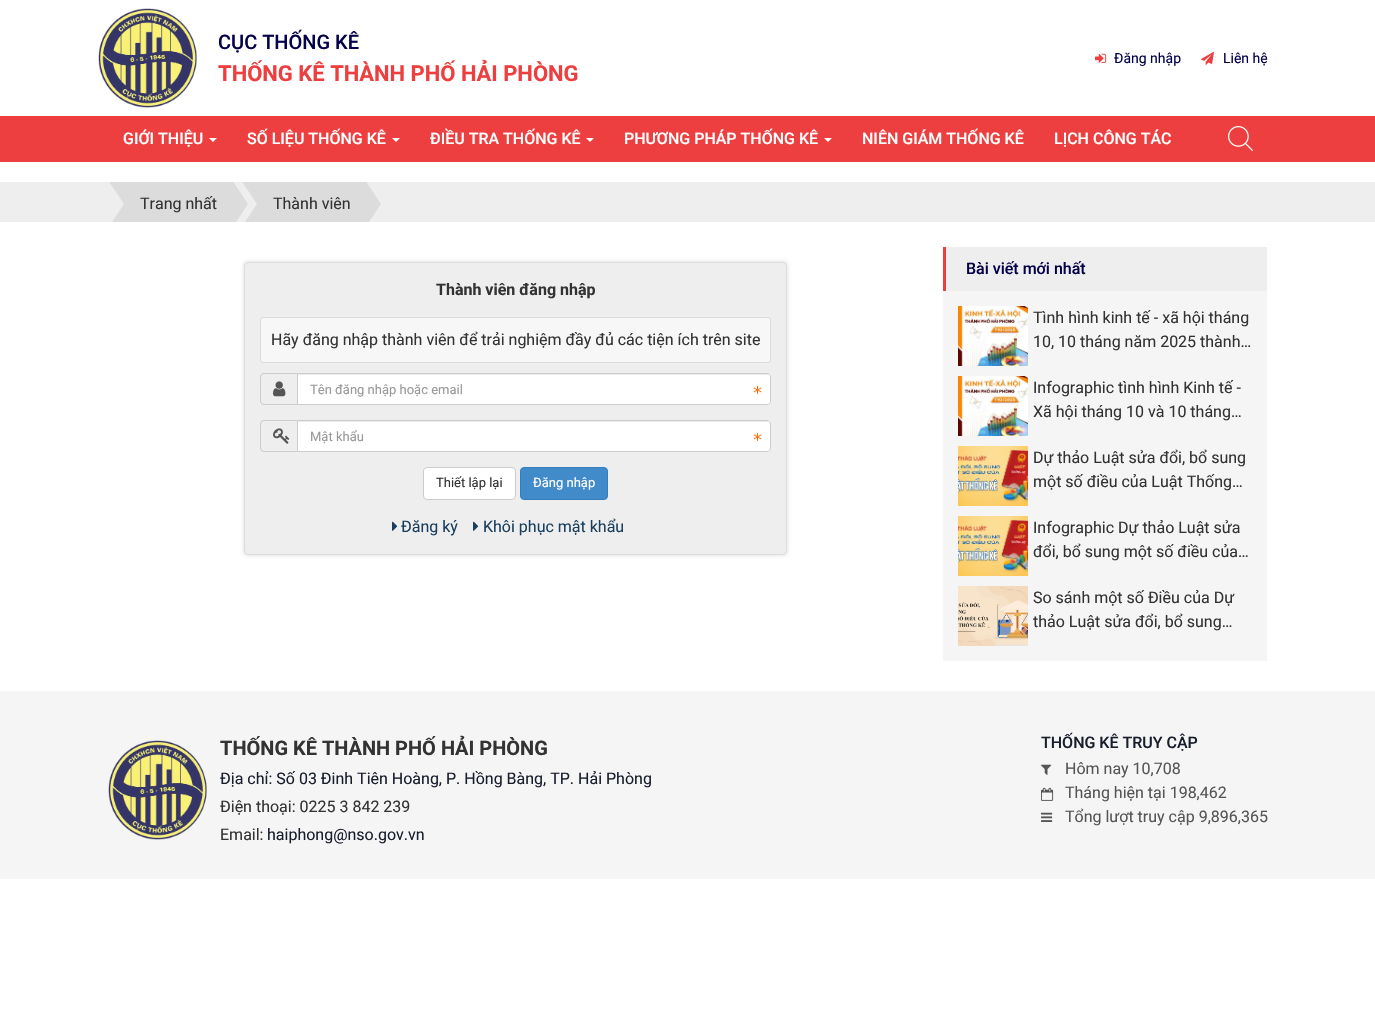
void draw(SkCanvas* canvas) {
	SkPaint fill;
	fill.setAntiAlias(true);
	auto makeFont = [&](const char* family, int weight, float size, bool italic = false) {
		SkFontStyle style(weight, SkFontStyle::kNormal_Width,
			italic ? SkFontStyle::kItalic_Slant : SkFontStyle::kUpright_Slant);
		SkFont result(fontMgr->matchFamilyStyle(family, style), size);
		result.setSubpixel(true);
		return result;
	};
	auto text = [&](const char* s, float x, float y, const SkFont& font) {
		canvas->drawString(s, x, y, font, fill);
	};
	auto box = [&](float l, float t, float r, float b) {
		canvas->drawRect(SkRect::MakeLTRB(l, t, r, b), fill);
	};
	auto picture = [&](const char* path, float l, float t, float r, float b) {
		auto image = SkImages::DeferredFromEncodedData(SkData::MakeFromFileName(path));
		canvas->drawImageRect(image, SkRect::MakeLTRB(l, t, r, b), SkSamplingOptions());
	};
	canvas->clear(0xFFFFFFFF);
	picture("image0.png", 98, 8, 198, 108);
	picture("image1.png", 1095, 53, 1107, 63);
	picture("image2.png", 1201, 51, 1214, 65);
	fill.setColor(0xFFED3F3F);
	box(0, 116, 1375, 162);
	fill.setColor(0xFFFFFFFF);
	canvas->drawPath(SkPathBuilder().moveTo(209, 138).lineTo(217, 138).lineTo(213, 142).close().detach(), fill);
	canvas->drawPath(SkPathBuilder().moveTo(392, 138).lineTo(400, 138).lineTo(396, 142).close().detach(), fill);
	canvas->drawPath(SkPathBuilder().moveTo(586, 138).lineTo(594, 138).lineTo(590, 142).close().detach(), fill);
	canvas->drawPath(SkPathBuilder().moveTo(824, 138).lineTo(832, 138).lineTo(828, 142).close().detach(), fill);
	picture("image3.png", 1228, 126, 1253, 151);
	fill.setColor(0xFFEEEEEE);
	box(0, 182, 1375, 222);
	fill.setColor(0xFFDCDCDC);
	box(125, 182, 232, 222);
	canvas->save();
	canvas->clipRect(SkRect::MakeLTRB(108, 182, 1268, 222));
	canvas->drawPath(SkPathBuilder().moveTo(108, 180).lineTo(125, 180).lineTo(125, 204).lineTo(124, 204).close().moveTo(125, 228).lineTo(108, 228).lineTo(124, 204).lineTo(125, 204).close().detach(), fill);
	canvas->drawPath(SkPathBuilder().moveTo(232, 228).lineTo(232, 180).lineTo(248, 204).close().detach(), fill);
	canvas->restore();
	box(258, 182, 365, 222);
	canvas->save();
	canvas->clipRect(SkRect::MakeLTRB(108, 182, 1268, 222));
	canvas->drawPath(SkPathBuilder().moveTo(241, 180).lineTo(258, 180).lineTo(258, 204).lineTo(257, 204).close().moveTo(258, 228).lineTo(241, 228).lineTo(257, 204).lineTo(258, 204).close().detach(), fill);
	canvas->drawPath(SkPathBuilder().moveTo(365, 228).lineTo(365, 180).lineTo(381, 204).close().detach(), fill);
	canvas->restore();
	fill.setColor(0x26000000);
	fill.setMaskFilter(SkMaskFilter::MakeBlur(kNormal_SkBlurStyle, 2));
	canvas->drawRoundRect(SkRect::MakeLTRB(244, 262, 787, 555), 4, 4, fill);
	fill.setMaskFilter(nullptr);
	fill.setColor(0xFFEEEEEE);
	canvas->drawRoundRect(SkRect::MakeLTRB(244.5f, 262.5f, 786.5f, 554.5f), 3.5f, 3.5f, fill);
	fill.setStyle(SkPaint::kStroke_Style);
	fill.setStrokeWidth(1);
	fill.setColor(0xFFDDDDDD);
	canvas->drawRoundRect(SkRect::MakeLTRB(244.5f, 262.5f, 786.5f, 554.5f), 3.5f, 3.5f, fill);
	fill.setStyle(SkPaint::kFill_Style);
	fill.setColor(0xFFF7F7F7);
	canvas->drawRoundRect(SkRect::MakeLTRB(260.5f, 317.5f, 770.5f, 362.5f), 2.5f, 2.5f, fill);
	fill.setStyle(SkPaint::kStroke_Style);
	fill.setColor(0xFFDCDCDC);
	canvas->drawRoundRect(SkRect::MakeLTRB(260.5f, 317.5f, 770.5f, 362.5f), 2.5f, 2.5f, fill);
	fill.setStyle(SkPaint::kFill_Style);
	fill.setColor(0xFFCCCCCC);
	canvas->drawPath(SkPathBuilder(SkPathFillType::kEvenOdd).moveTo(264, 373).lineTo(297, 373).lineTo(297, 405).lineTo(264, 405).cubicTo(262, 405, 260, 403, 260, 401).lineTo(260, 377).cubicTo(260, 375, 262, 373, 264, 373).close().moveTo(264, 374).lineTo(297, 374).lineTo(297, 404).lineTo(264, 404).cubicTo(262.5f, 404, 261, 402.5f, 261, 401).lineTo(261, 377).cubicTo(261, 375.5f, 262.5f, 374, 264, 374).close().detach(), fill);
	picture("image4.png", 273, 381, 286, 397);
	fill.setColor(0xFFFFFFFF);
	canvas->drawPath(SkPathBuilder().moveTo(297, 373).lineTo(767, 373).cubicTo(769, 373, 771, 375, 771, 377).lineTo(771, 401).cubicTo(771, 403, 769, 405, 767, 405).lineTo(297, 405).close().detach(), fill);
	picture("image5.png", 753, 385, 762, 394);
	fill.setColor(0xFFECECEC);
	canvas->drawPath(SkPathBuilder().moveTo(298, 375).lineTo(767, 375).cubicTo(769, 375, 770, 376, 770, 378).cubicTo(770, 376, 769, 374, 767, 374).lineTo(298, 374).close().detach(), fill);
	fill.setStyle(SkPaint::kStroke_Style);
	fill.setColor(0xFFCCCCCC);
	canvas->drawPath(SkPathBuilder().moveTo(297.5f, 373.5f).lineTo(767, 373.5f).cubicTo(769, 373.5f, 770.5f, 375, 770.5f, 377).lineTo(770.5f, 401).cubicTo(770.5f, 403, 769, 404.5f, 767, 404.5f).lineTo(297.5f, 404.5f).close().detach(), fill);
	fill.setStyle(SkPaint::kFill_Style);
	canvas->drawPath(SkPathBuilder(SkPathFillType::kEvenOdd).moveTo(264, 420).lineTo(297, 420).lineTo(297, 452).lineTo(264, 452).cubicTo(262, 452, 260, 450, 260, 448).lineTo(260, 424).cubicTo(260, 422, 262, 420, 264, 420).close().moveTo(264, 421).lineTo(297, 421).lineTo(297, 451).lineTo(264, 451).cubicTo(262.5f, 451, 261, 449.5f, 261, 448).lineTo(261, 424).cubicTo(261, 422.5f, 262.5f, 421, 264, 421).close().detach(), fill);
	picture("image6.png", 273, 428, 290, 444);
	fill.setColor(0xFFFFFFFF);
	canvas->drawPath(SkPathBuilder().moveTo(297, 420).lineTo(767, 420).cubicTo(769, 420, 771, 422, 771, 424).lineTo(771, 448).cubicTo(771, 450, 769, 452, 767, 452).lineTo(297, 452).close().detach(), fill);
	picture("image5.png", 753, 432, 762, 441);
	fill.setColor(0xFFECECEC);
	canvas->drawPath(SkPathBuilder().moveTo(298, 422).lineTo(767, 422).cubicTo(769, 422, 770, 423, 770, 425).cubicTo(770, 423, 769, 421, 767, 421).lineTo(298, 421).close().detach(), fill);
	fill.setStyle(SkPaint::kStroke_Style);
	fill.setColor(0xFFCCCCCC);
	canvas->drawPath(SkPathBuilder().moveTo(297.5f, 420.5f).lineTo(767, 420.5f).cubicTo(769, 420.5f, 770.5f, 422, 770.5f, 424).lineTo(770.5f, 448).cubicTo(770.5f, 450, 769, 451.5f, 767, 451.5f).lineTo(297.5f, 451.5f).close().detach(), fill);
	fill.setStyle(SkPaint::kFill_Style);
	fill.setColor(0xFFFFFFFF);
	canvas->drawRoundRect(SkRect::MakeLTRB(423.5f, 467.5f, 515.5f, 499.5f), 3.5f, 3.5f, fill);
	fill.setStyle(SkPaint::kStroke_Style);
	fill.setColor(0xFFCCCCCC);
	canvas->drawRoundRect(SkRect::MakeLTRB(423.5f, 467.5f, 515.5f, 499.5f), 3.5f, 3.5f, fill);
	fill.setStyle(SkPaint::kFill_Style);
	fill.setColor(0xFF428BCA);
	canvas->drawRoundRect(SkRect::MakeLTRB(520.5f, 467.5f, 607.5f, 499.5f), 3.5f, 3.5f, fill);
	fill.setStyle(SkPaint::kStroke_Style);
	fill.setColor(0xFF357EBD);
	canvas->drawRoundRect(SkRect::MakeLTRB(520.5f, 467.5f, 607.5f, 499.5f), 3.5f, 3.5f, fill);
	picture("image7.png", 392, 521, 398, 531);
	picture("image7.png", 473, 521, 479, 531);
	fill.setStyle(SkPaint::kFill_Style);
	fill.setColor(0xFFF5F5F5);
	box(943, 291, 1267, 661);
	fill.setColor(0xFFEEEEEE);
	box(946, 247, 1267, 291);
	fill.setColor(0xFFED3F3F);
	box(943, 247, 946, 291);
	picture("image8.png", 958, 306, 1028, 366);
	picture("image9.png", 958, 376, 1028, 436);
	picture("image10.png", 958, 446, 1028, 506);
	picture("image10.png", 958, 516, 1028, 576);
	picture("image11.png", 958, 586, 1028, 646);
	fill.setColor(0xFFF5F5F5);
	box(0, 691, 1375, 879);
	picture("image12.png", 108, 740, 207, 840);
	picture("image13.png", 1041, 764, 1052, 775);
	picture("image14.png", 1041, 787, 1054, 801);
	picture("image15.png", 1041, 812, 1053, 822);
	auto font1 = makeFont("Roboto", 500, 20);
	fill.setColor(0xFF04004A);
	text("CỤC THỐNG KÊ", 218, 49, font1);
	auto font2 = makeFont("Roboto", 700, 22);
	fill.setColor(0xFFED3F3F);
	text("THỐNG KÊ THÀNH PHỐ HẢI PHÒNG", 218, 81, font2);
	auto font3 = makeFont("Roboto", 400, 14);
	fill.setColor(0xFF04004A);
	text("Đăng nhập", 1114, 63, font3);
	text("Liên hệ", 1223, 63, font3);
	auto font4 = makeFont("Roboto", 500, 16);
	fill.setColor(0xFFFFFFFF);
	text("GIỚI THIỆU", 123, 144, font4);
	text("SỐ LIỆU THỐNG KÊ", 247, 144, font4);
	text("ĐIỀU TRA THỐNG KÊ", 430, 144, font4);
	text("PHƯƠNG PHÁP THỐNG KÊ", 624, 144, font4);
	text("NIÊN GIÁM THỐNG KÊ", 862, 144, font4);
	text("LỊCH CÔNG TÁC", 1054, 144, font4);
	auto font5 = makeFont("Roboto", 400, 16);
	fill.setColor(0xFF333333);
	text("Trang nhất", 140, 209, font5);
	text("Thành viên", 273, 209, font5);
	auto font6 = makeFont("Roboto", 700, 16);
	text("Thành viên đăng nhập", 436, 295, font6);
	text("Hãy đăng nhập thành viên để trải nghiệm đầy đủ các tiện ích trên site", 271, 345, font5);
	auto font7 = makeFont("Roboto", 400, 13);
	fill.setColor(0xFF999999);
	text("Tên đăng nhập hoặc email", 310, 394, font7);
	text("Mật khẩu", 310, 441, font7);
	fill.setColor(0xFF333333);
	text("Thiết lập lại", 436, 487, font7);
	fill.setColor(0xFFFFFFFF);
	text("Đăng nhập", 533, 487, font7);
	fill.setColor(0xFF1A3F5E);
	text("Đăng ký", 401, 532, font5);
	text("Khôi phục mật khẩu", 483, 532, font5);
	fill.setColor(0xFF04004A);
	text("Bài viết mới nhất", 966, 274, font4);
	fill.setColor(0xFF333333);
	text("Tình hình kinh tế - xã hội tháng", 1033, 323, font5);
	text("10, 10 tháng năm 2025 thành…", 1033, 347, font5);
	text("Infographic tình hình Kinh tế -", 1033, 393, font5);
	text("Xã hội tháng 10 và 10 tháng…", 1033, 417, font5);
	text("Dự thảo Luật sửa đổi, bổ sung", 1033, 463, font5);
	text("một số điều của Luật Thống…", 1033, 487, font5);
	text("Infographic Dự thảo Luật sửa", 1033, 533, font5);
	text("đổi, bổ sung một số điều của…", 1033, 557, font5);
	text("So sánh một số Điều của Dự", 1033, 603, font5);
	text("thảo Luật sửa đổi, bổ sung…", 1033, 627, font5);
	auto font8 = makeFont("Roboto", 700, 20);
	text("THỐNG KÊ THÀNH PHỐ HẢI PHÒNG", 220, 755, font8);
	fill.setColor(0xFF191E2D);
	text("Địa chỉ: Số 03 Đinh Tiên Hoàng, P. Hồng Bàng, TP. Hải Phòng", 220, 784, font5);
	fill.setColor(0xFF333333);
	text("Điện thoại: 0225 3 842 239", 220, 812, font5);
	text("Email:", 220, 840, font5);
	fill.setColor(0xFF191E2D);
	text("haiphong@nso.gov.vn", 267, 840, font5);
	text("THỐNG KÊ TRUY CẬP", 1041, 748, font4);
	fill.setColor(0xFF555555);
	text("Hôm nay 10,708", 1065, 774, font5);
	text("Tháng hiện tại 198,462", 1065, 798, font5);
	text("Tổng lượt truy cập 9,896,365", 1065, 822, font5);
}
